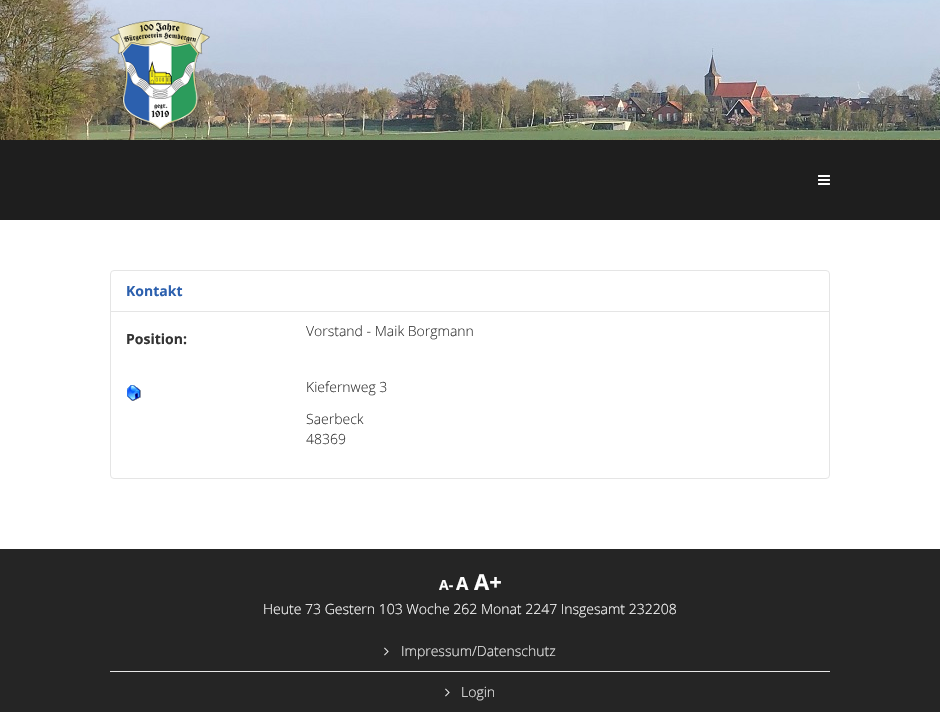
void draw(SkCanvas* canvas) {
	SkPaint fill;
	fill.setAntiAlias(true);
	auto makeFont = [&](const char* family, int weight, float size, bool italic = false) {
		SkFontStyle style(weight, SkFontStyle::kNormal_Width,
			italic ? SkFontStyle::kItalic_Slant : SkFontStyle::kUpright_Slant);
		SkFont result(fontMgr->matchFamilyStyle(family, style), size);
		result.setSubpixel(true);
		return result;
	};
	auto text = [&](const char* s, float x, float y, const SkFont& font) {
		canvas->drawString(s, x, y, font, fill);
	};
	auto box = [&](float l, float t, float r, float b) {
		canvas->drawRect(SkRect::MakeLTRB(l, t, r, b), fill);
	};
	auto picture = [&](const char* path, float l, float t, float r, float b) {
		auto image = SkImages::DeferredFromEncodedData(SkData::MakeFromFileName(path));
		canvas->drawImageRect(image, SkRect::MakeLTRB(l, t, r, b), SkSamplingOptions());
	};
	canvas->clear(0xFFFFFFFF);
	picture("image0.png", 0, 0, 940, 140);
	picture("image1.png", 110, 20, 210, 130);
	fill.setColor(0xFF1E1E1E);
	box(0, 140, 940, 220);
	picture("image2.png", 818, 175, 830, 185);
	fill.setStyle(SkPaint::kStroke_Style);
	fill.setStrokeWidth(1);
	fill.setColor(0xFFE5E5E5);
	canvas->drawRoundRect(SkRect::MakeLTRB(110.5f, 270.5f, 829.5f, 478.5f), 3.5f, 3.5f, fill);
	fill.setStyle(SkPaint::kFill_Style);
	box(111, 311, 829, 312);
	picture("image3.png", 127, 385, 141, 401);
	fill.setColor(0xFF252525);
	box(0, 549, 940, 712);
	fill.setColor(0xFFE8E8E8);
	box(110, 671, 830, 672);
	picture("image4.png", 384, 647, 389, 656);
	picture("image4.png", 445, 688, 450, 697);
	auto font1 = makeFont("Open Sans", 700, 14);
	fill.setColor(0xFF2C60AE);
	text("Kontakt", 126, 296, font1);
	fill.setColor(0xFF333333);
	text("Position:", 126, 344, font1);
	auto font2 = makeFont("Open Sans", 300, 14);
	text("Vorstand - Maik Borgmann", 306, 336, font2);
	text("Kiefernweg 3", 306, 392, font2);
	text("Saerbeck", 306, 424, font2);
	text("48369", 306, 444, font2);
	fill.setColor(0xFFFFFFFF);
	text("A-", 439, 590, font1);
	auto font3 = makeFont("Open Sans", 700, 18);
	text("A", 456, 590, font3);
	auto font4 = makeFont("Open Sans", 700, 22);
	text("A+", 474, 590, font4);
	text("Heute 73 Gestern 103 Woche 262 Monat 2247 Insgesamt 232208", 263, 614, font2);
	fill.setColor(0xFFE9E9E9);
	text("Impressum/Datenschutz", 401, 656, font2);
	text("Login", 461, 697, font2);
}
